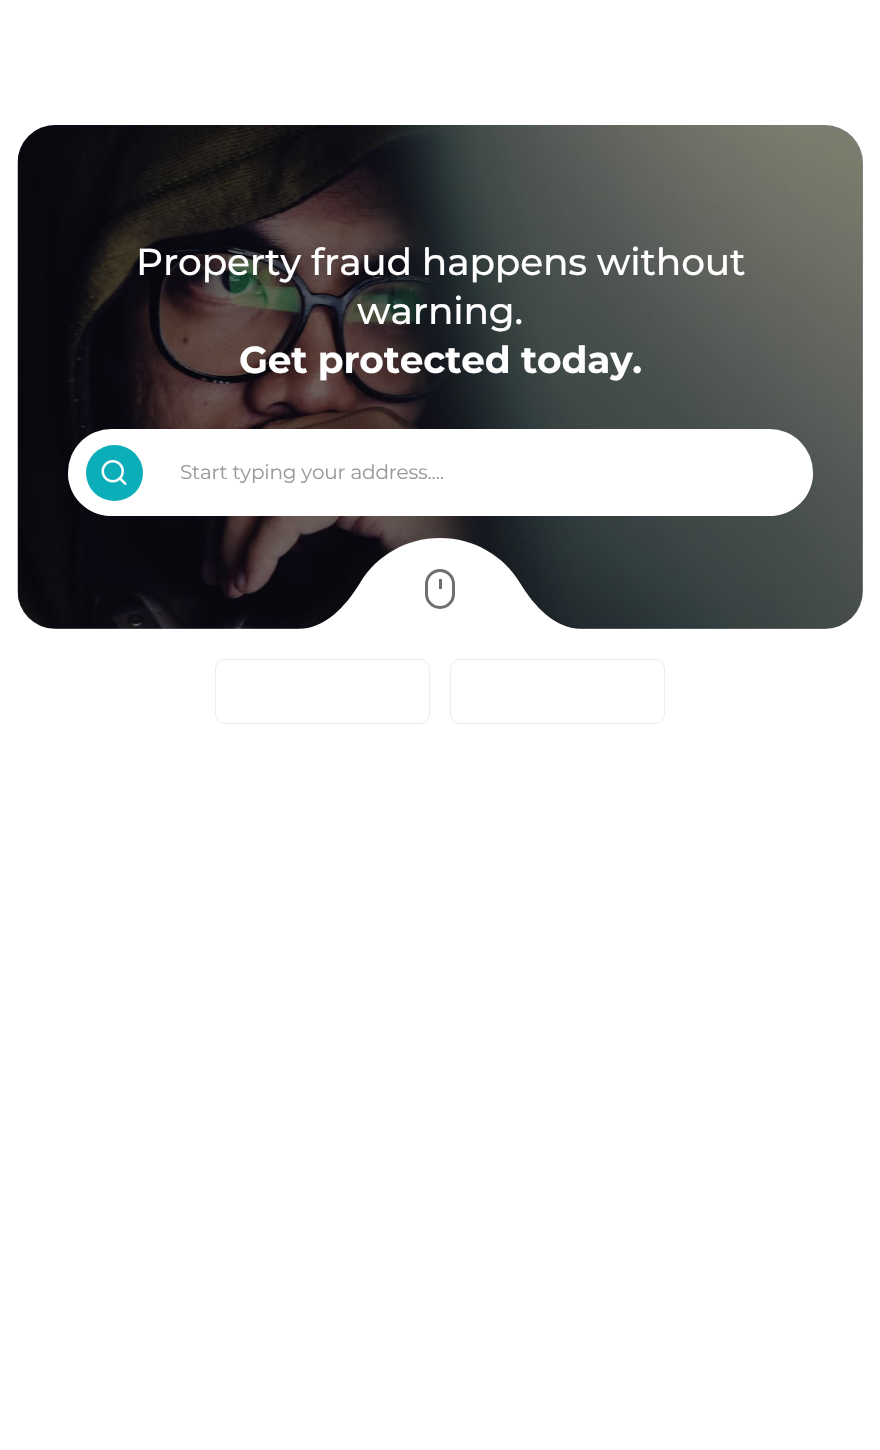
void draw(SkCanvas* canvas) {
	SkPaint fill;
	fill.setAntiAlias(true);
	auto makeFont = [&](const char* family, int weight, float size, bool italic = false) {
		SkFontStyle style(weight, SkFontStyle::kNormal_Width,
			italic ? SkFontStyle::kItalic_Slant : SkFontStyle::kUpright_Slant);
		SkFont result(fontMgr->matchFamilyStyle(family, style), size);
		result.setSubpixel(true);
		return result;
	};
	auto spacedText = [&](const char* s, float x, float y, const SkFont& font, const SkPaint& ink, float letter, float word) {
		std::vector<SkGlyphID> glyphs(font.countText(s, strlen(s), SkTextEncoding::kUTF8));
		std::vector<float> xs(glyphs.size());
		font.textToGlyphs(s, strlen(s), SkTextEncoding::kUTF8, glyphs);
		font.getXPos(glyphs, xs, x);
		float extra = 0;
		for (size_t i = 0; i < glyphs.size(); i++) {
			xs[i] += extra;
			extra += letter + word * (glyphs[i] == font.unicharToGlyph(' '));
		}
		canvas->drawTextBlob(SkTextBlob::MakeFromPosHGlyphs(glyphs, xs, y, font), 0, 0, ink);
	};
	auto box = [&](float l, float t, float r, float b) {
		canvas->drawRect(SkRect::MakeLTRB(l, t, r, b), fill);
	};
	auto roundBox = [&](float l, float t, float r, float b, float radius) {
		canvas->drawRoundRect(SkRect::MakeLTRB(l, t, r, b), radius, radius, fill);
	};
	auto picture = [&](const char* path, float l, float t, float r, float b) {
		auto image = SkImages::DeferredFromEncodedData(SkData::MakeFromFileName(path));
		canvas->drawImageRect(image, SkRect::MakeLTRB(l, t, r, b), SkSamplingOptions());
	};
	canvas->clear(0xFFFFFFFF);
	picture("image0.png", 17, 125, 863, 629);
	fill.setColor(0x80000000);
	roundBox(18, 125, 863, 629, 38);
	fill.setColor(0xFFFFFFFF);
	canvas->drawPath(SkPathBuilder().moveTo(298, 629).lineTo(582, 629).cubicTo(555, 629, 534, 606, 520, 583).cubicTo(504, 556, 474, 538, 440, 538).cubicTo(406, 538, 376, 556, 360, 583).cubicTo(346, 606, 325, 629, 298, 629).close().detach(), fill);
	roundBox(68, 429, 813, 516, 43.5f);
	canvas->drawPath(SkPathBuilder().moveTo(68, 473).lineTo(813, 473).cubicTo(813, 496.5f, 793.5f, 516, 770, 516).lineTo(111, 516).cubicTo(87.5f, 516, 68, 496.5f, 68, 473).close().detach(), fill);
	fill.setColor(0xFF0CAEB9);
	roundBox(86, 445, 143, 501, 28);
	picture("image1.png", 101, 460, 127, 485);
	fill.setStyle(SkPaint::kStroke_Style);
	fill.setStrokeWidth(3);
	fill.setColor(0xFF6F6F6F);
	canvas->drawRoundRect(SkRect::MakeLTRB(426.5f, 570.5f, 453.5f, 607.5f), 13.5f, 13.5f, fill);
	fill.setStyle(SkPaint::kFill_Style);
	box(439, 579, 442, 589);
	fill.setStyle(SkPaint::kStroke_Style);
	fill.setStrokeWidth(1);
	fill.setColor(0xFFEAEEEF);
	canvas->drawRoundRect(SkRect::MakeLTRB(215.5f, 659.5f, 429.5f, 723.5f), 9.5f, 9.5f, fill);
	canvas->drawRoundRect(SkRect::MakeLTRB(450.5f, 659.5f, 664.5f, 723.5f), 9.5f, 9.5f, fill);
	auto font1 = makeFont("Montserrat", 500, 37.5f);
	fill.setStyle(SkPaint::kFill_Style);
	fill.setColor(0xFFFEFEFE);
	spacedText("Property fraud happens without", 136, 275, font1, fill, -0.2f, 0);
	spacedText("warning.", 357, 324, font1, fill, -0.2f, 0);
	auto font2 = makeFont("Montserrat", 700, 37.5f);
	spacedText("Get protected today.", 239, 373, font2, fill, -0.2f, 0);
	auto font3 = makeFont("Montserrat", 400, 20);
	fill.setColor(0xFF999999);
	spacedText("Start typing your address....", 180, 479, font3, fill, -0.2f, 0);
}
